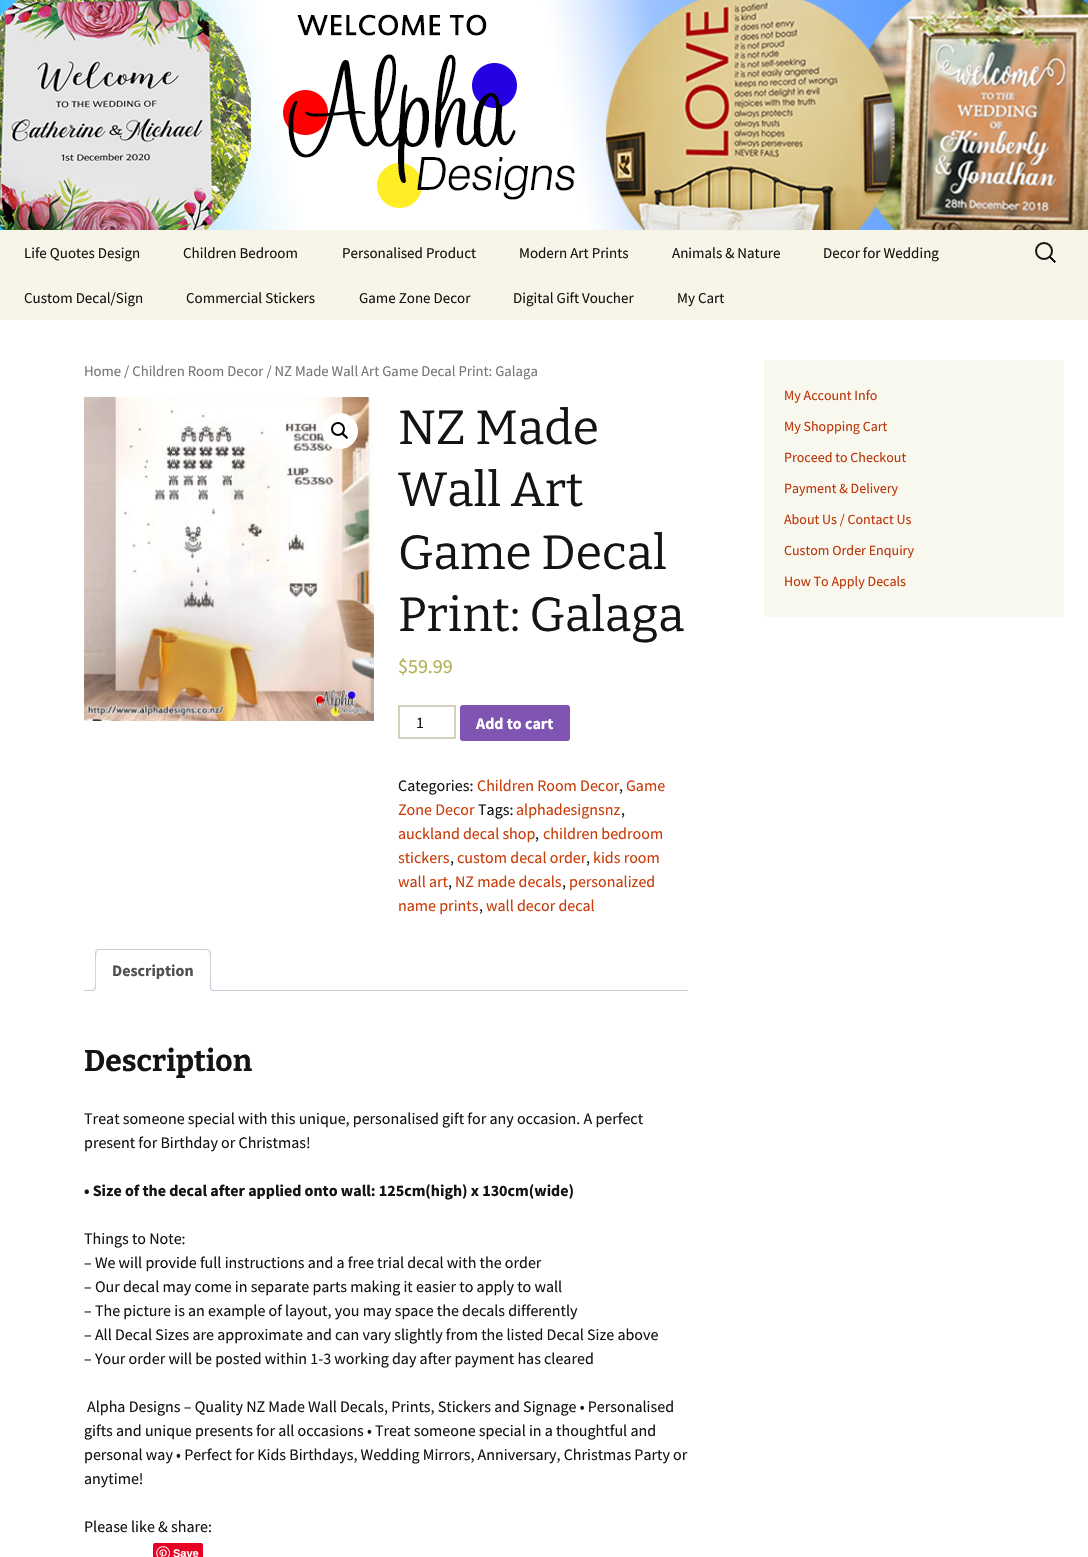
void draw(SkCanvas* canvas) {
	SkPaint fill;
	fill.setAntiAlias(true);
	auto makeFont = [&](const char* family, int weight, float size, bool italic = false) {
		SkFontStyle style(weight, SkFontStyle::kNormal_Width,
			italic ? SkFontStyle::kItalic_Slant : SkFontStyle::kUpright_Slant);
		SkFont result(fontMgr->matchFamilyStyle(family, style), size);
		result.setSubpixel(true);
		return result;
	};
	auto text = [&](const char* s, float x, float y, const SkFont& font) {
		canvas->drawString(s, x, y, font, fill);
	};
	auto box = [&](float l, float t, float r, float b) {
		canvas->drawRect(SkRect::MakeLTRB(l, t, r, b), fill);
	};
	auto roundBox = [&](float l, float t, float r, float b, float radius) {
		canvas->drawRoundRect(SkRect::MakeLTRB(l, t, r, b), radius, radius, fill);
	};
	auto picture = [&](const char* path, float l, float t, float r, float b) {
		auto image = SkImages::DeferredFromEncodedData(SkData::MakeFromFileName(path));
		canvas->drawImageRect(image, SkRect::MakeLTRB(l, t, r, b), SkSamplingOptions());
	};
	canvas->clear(0xFFFFFFFF);
	picture("image0.png", 0, 0, 1088, 230);
	fill.setColor(0xFFF7F5E7);
	box(0, 230, 1088, 320);
	picture("image1.png", 1035, 242, 1056, 263);
	picture("image2.png", 84, 397, 374, 721);
	fill.setColor(0xFFFFFFFF);
	canvas->drawCircle(340, 431, 18, fill);
	fill.setStyle(SkPaint::kStroke_Style);
	fill.setStrokeWidth(2);
	fill.setColor(0xFF000000);
	canvas->drawCircle(338, 429, 6, fill);
	fill.setStyle(SkPaint::kFill_Style);
	canvas->drawPath(SkPathBuilder().moveTo(342, 433).cubicTo(343.5f, 432, 345, 434.5f, 345.5f, 435).cubicTo(346, 435.5f, 349, 437.5f, 347.5f, 438.5f).cubicTo(346.5f, 440, 345, 437, 344, 436.5f).cubicTo(343.5f, 436, 341, 434, 342, 433).close().detach(), fill);
	fill.setStyle(SkPaint::kStroke_Style);
	fill.setColor(0xFFD4D0BA);
	canvas->drawRect(SkRect::MakeLTRB(399, 706, 455, 738), fill);
	fill.setStyle(SkPaint::kFill_Style);
	fill.setColor(0xFF7F54B3);
	roundBox(460, 705, 570, 741, 3);
	fill.setColor(0xFFCFC8D8);
	box(84, 990, 688, 991);
	fill.setColor(0xFFFFFFFF);
	canvas->drawPath(SkPathBuilder().moveTo(99, 949).lineTo(207, 949).cubicTo(209, 949, 211, 951, 211, 953).lineTo(211, 991).lineTo(95, 991).lineTo(95, 953).cubicTo(95, 951, 97, 949, 99, 949).close().detach(), fill);
	fill.setColor(0xFFCFC8D8);
	canvas->drawPath(SkPathBuilder().moveTo(99, 949).lineTo(96, 950).lineTo(97, 951).lineTo(99, 950).lineTo(207, 950).lineTo(209, 951).lineTo(210, 950).lineTo(207, 949).close().detach(), fill);
	canvas->drawPath(SkPathBuilder().moveTo(211, 991).lineTo(211, 953).cubicTo(211, 952, 210, 951, 210, 950).lineTo(209, 951).cubicTo(211, 953, 210, 985, 210, 990).close().detach(), fill);
	fill.setColor(0xFFFFFFFF);
	canvas->drawPath(SkPathBuilder().moveTo(211, 991).lineTo(210, 990).lineTo(96, 990).lineTo(95, 991).close().detach(), fill);
	fill.setColor(0xFFCFC8D8);
	canvas->drawPath(SkPathBuilder().moveTo(95, 991).lineTo(96, 990).cubicTo(96, 985, 95, 953, 97, 951).lineTo(96, 950).lineTo(95, 953).close().detach(), fill);
	canvas->save();
	canvas->clipRect(SkRect::MakeLTRB(84, 949, 688, 991));
	fill.setColor(0xFFFFFFFF);
	canvas->drawPath(SkPathBuilder().moveTo(93, 991).lineTo(93, 993).cubicTo(96.5f, 993, 98, 991.5f, 98, 988).lineTo(96, 988).cubicTo(95.5f, 989.5f, 94.5f, 990.5f, 93, 991).close().detach(), fill);
	canvas->restore();
	fill.setColor(0xFFCFC8D8);
	canvas->drawPath(SkPathBuilder(SkPathFillType::kEvenOdd).moveTo(91, 986).lineTo(96, 986).cubicTo(96, 989.5f, 94.5f, 991, 91, 991).close().moveTo(91, 986).lineTo(95, 986).cubicTo(95, 989, 94, 990, 91, 990).close().detach(), fill);
	canvas->save();
	canvas->clipRect(SkRect::MakeLTRB(84, 949, 688, 991));
	fill.setColor(0xFFFFFFFF);
	canvas->drawPath(SkPathBuilder().moveTo(208, 988).cubicTo(208, 991.5f, 209.5f, 993, 213, 993).lineTo(213, 991).cubicTo(211.5f, 990.5f, 210.5f, 989.5f, 210, 988).close().detach(), fill);
	canvas->restore();
	fill.setColor(0xFFCFC8D8);
	canvas->drawPath(SkPathBuilder(SkPathFillType::kEvenOdd).moveTo(210, 986).lineTo(215, 986).lineTo(215, 991).cubicTo(212.5f, 991, 210, 990, 210, 987).close().moveTo(211, 986).lineTo(215, 986).lineTo(215, 990).cubicTo(213, 990, 211, 989.5f, 211, 987).close().detach(), fill);
	fill.setColor(0xFFE60023);
	roundBox(153, 1543, 203, 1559, 2);
	picture("image3.png", 156, 1546, 170, 1557);
	fill.setColor(0xFFF9F8EE);
	box(764, 360, 1064, 617);
	auto font1 = makeFont("Source Sans Pro", 400, 15);
	fill.setColor(0xFF141412);
	text("Life Quotes Design", 24, 258, font1);
	text("Children Bedroom", 183, 258, font1);
	text("Personalised Product", 342, 258, font1);
	text("Modern Art Prints", 519, 258, font1);
	text("Animals & Nature", 672, 258, font1);
	text("Decor for Wedding", 823, 258, font1);
	text("Custom Decal/Sign", 24, 303, font1);
	text("Commercial Stickers", 186, 303, font1);
	text("Game Zone Decor", 359, 303, font1);
	text("Digital Gift Voucher", 513, 303, font1);
	text("My Cart", 677, 303, font1);
	auto font2 = makeFont("Source Sans Pro", 400, 14.75f);
	fill.setColor(0xFF767676);
	text("Home / Children Room Decor / NZ Made Wall Art Game Decal Print: Galaga", 84, 376, font2);
	auto font3 = makeFont("Bitter", 400, 48);
	fill.setColor(0xFF141412);
	text("NZ Made", 398, 444, font3);
	text("Wall Art", 398, 506, font3);
	text("Game Decal", 398, 569, font3);
	text("Print: Galaga", 398, 631, font3);
	auto font4 = makeFont("Source Sans Pro", 400, 20);
	fill.setColor(0xFFB3AF54);
	text("$59.99", 398, 673, font4);
	auto font5 = makeFont("Source Sans Pro", 400, 16);
	fill.setColor(0xFF141412);
	text("1", 416, 728, font5);
	auto font6 = makeFont("Source Sans Pro", 700, 16);
	fill.setColor(0xFFFFFFFF);
	text("Add to cart", 476, 729, font6);
	fill.setColor(0xFF141412);
	text("Categories:", 398, 791, font5);
	fill.setColor(0xFFCA3C08);
	text("Children Room Decor", 477, 791, font5);
	fill.setColor(0xFF141412);
	text(",", 619, 791, font5);
	fill.setColor(0xFFCA3C08);
	text("Game", 626, 791, font5);
	text("Zone Decor", 398, 815, font5);
	fill.setColor(0xFF141412);
	text("Tags:", 478, 815, font5);
	fill.setColor(0xFFCA3C08);
	text("alphadesignsnz", 516, 815, font5);
	fill.setColor(0xFF141412);
	text(",", 621, 815, font5);
	fill.setColor(0xFFCA3C08);
	text("auckland decal shop", 398, 839, font5);
	fill.setColor(0xFF141412);
	text(",", 535, 839, font5);
	fill.setColor(0xFFCA3C08);
	text("children bedroom", 543, 839, font5);
	text("stickers", 398, 863, font5);
	fill.setColor(0xFF141412);
	text(",", 450, 863, font5);
	fill.setColor(0xFFCA3C08);
	text("custom decal order", 457, 863, font5);
	fill.setColor(0xFF141412);
	text(",", 586, 863, font5);
	fill.setColor(0xFFCA3C08);
	text("kids room", 593, 863, font5);
	text("wall art", 398, 887, font5);
	fill.setColor(0xFF141412);
	text(",", 448, 887, font5);
	fill.setColor(0xFFCA3C08);
	text("NZ made decals", 455, 887, font5);
	fill.setColor(0xFF141412);
	text(",", 562, 887, font5);
	fill.setColor(0xFFCA3C08);
	text("personalized", 569, 887, font5);
	text("name prints", 398, 911, font5);
	fill.setColor(0xFF141412);
	text(",", 479, 911, font5);
	fill.setColor(0xFFCA3C08);
	text("wall decor decal", 486, 911, font5);
	fill.setColor(0xFF515151);
	text("Description", 112, 976, font6);
	auto font7 = makeFont("Bitter", 700, 30);
	fill.setColor(0xFF141412);
	text("Description", 84, 1071, font7);
	text("Treat someone special with this unique, personalised gift for any occasion. A perfect", 84, 1124, font5);
	text("present for Birthday or Christmas!", 84, 1148, font5);
	text("• Size of the decal after applied onto wall: 125cm(high) x 130cm(wide)", 84, 1196, font6);
	text("Things to Note:", 84, 1244, font5);
	text("– We will provide full instructions and a free trial decal with the order", 84, 1268, font5);
	text("– Our decal may come in separate parts making it easier to apply to wall", 84, 1292, font5);
	text("– The picture is an example of layout, you may space the decals differently", 84, 1316, font5);
	text("– All Decal Sizes are approximate and can vary slightly from the listed Decal Size above", 84, 1340, font5);
	text("– Your order will be posted within 1-3 working day after payment has cleared", 84, 1364, font5);
	text("Alpha Designs – Quality NZ Made Wall Decals, Prints, Stickers and Signage • Personalised", 87, 1412, font5);
	text("gifts and unique presents for all occasions • Treat someone special in a thoughtful and", 84, 1436, font5);
	text("personal way • Perfect for Kids Birthdays, Wedding Mirrors, Anniversary, Christmas Party or", 84, 1460, font5);
	text("anytime!", 84, 1484, font5);
	text("Please like & share:", 84, 1532, font5);
	auto font8 = makeFont("Liberation Sans", 700, 11);
	fill.setColor(0xFFFFFFFF);
	text("Save", 173, 1557, font8);
	auto font9 = makeFont("Source Sans Pro", 400, 14);
	fill.setColor(0xFFBC360A);
	text("My Account Info", 784, 400, font9);
	text("My Shopping Cart", 784, 431, font9);
	text("Proceed to Checkout", 784, 462, font9);
	text("Payment & Delivery", 784, 493, font9);
	text("About Us / Contact Us", 784, 524, font9);
	text("Custom Order Enquiry", 784, 555, font9);
	text("How To Apply Decals", 784, 586, font9);
}
